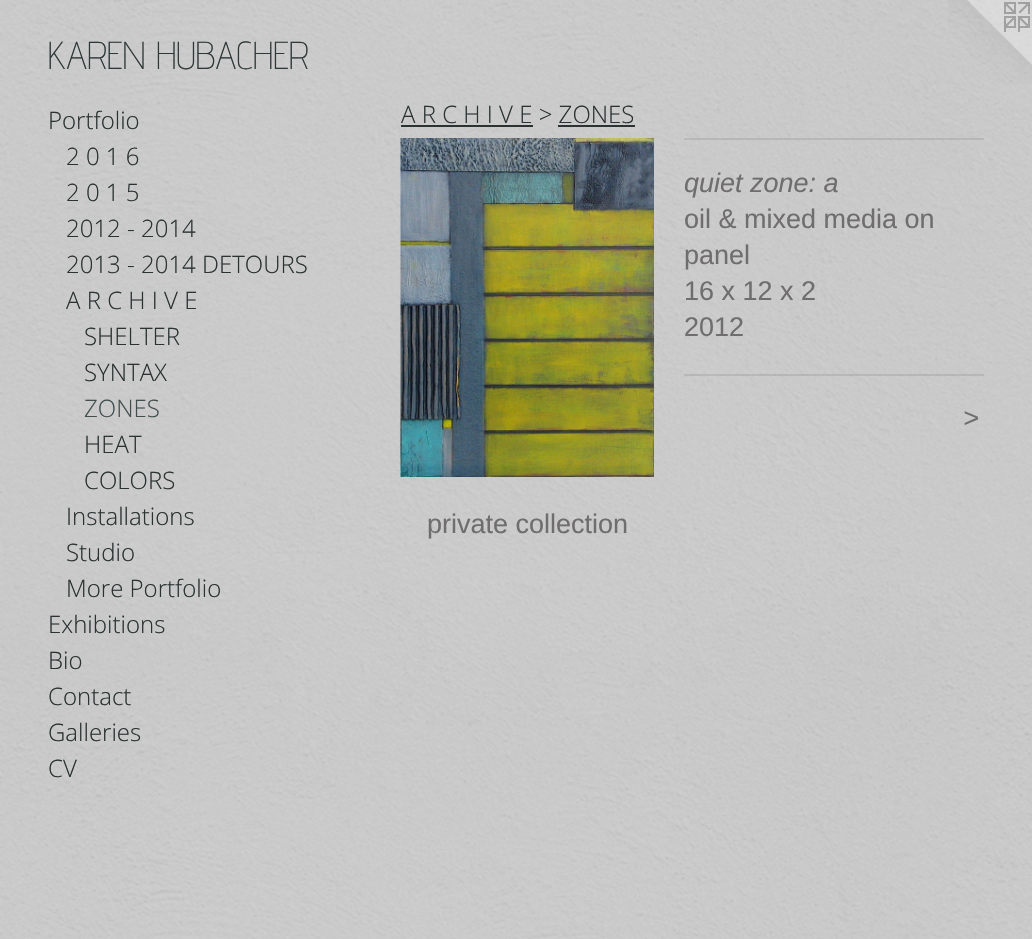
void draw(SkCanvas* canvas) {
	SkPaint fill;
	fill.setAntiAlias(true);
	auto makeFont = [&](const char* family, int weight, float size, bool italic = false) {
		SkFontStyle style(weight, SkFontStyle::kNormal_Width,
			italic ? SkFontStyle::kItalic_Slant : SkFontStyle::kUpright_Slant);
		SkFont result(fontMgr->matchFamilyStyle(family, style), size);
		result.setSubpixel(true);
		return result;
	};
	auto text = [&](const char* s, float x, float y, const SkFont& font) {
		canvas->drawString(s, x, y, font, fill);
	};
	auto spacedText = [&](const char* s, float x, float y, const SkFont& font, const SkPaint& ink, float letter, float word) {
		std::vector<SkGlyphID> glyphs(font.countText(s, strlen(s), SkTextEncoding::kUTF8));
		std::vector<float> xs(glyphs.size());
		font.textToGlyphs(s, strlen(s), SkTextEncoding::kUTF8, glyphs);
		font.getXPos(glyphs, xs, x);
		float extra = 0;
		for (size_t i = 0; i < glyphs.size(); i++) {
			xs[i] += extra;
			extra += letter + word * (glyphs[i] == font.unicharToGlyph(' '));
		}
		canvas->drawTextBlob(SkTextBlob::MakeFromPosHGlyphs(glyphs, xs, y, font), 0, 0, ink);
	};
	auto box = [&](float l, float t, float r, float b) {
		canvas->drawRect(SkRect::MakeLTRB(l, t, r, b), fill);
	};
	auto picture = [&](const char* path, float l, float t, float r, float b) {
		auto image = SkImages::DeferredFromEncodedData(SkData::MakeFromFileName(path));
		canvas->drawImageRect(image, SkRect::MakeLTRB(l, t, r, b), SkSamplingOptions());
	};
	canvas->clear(0xFFFFFFFF);
	picture("image0.png", 0, 0, 1032, 939);
	picture("image1.png", 948, 0, 1032, 84);
	fill.setColor(0xFF2A3232);
	box(401, 125, 533, 127);
	box(558, 125, 635, 127);
	picture("image2.png", 400, 138, 654, 477);
	fill.setColor(0x336F6D6D);
	box(684, 138, 984, 140);
	box(684, 374, 984, 376);
	auto font1 = makeFont("Advent Pro", 200, 39);
	fill.setColor(0xFF2E3838);
	text("KAREN HUBACHER", 48, 69, font1);
	auto font2 = makeFont("Open Sans", 300, 24);
	fill.setColor(0xFF2A3232);
	text("Portfolio", 48, 129, font2);
	text("2 0 1 6", 66, 165, font2);
	text("2 0 1 5", 66, 201, font2);
	text("2012 - 2014", 66, 237, font2);
	text("2013 - 2014 DETOURS", 66, 273, font2);
	text("A R C H I V E", 66, 309, font2);
	text("SHELTER", 84, 345, font2);
	text("SYNTAX", 84, 381, font2);
	fill.setColor(0xFF414E4E);
	text("ZONES", 84, 417, font2);
	fill.setColor(0xFF2A3232);
	text("HEAT", 84, 453, font2);
	text("COLORS", 84, 489, font2);
	text("Installations", 66, 525, font2);
	text("Studio", 66, 561, font2);
	text("More Portfolio", 66, 597, font2);
	text("Exhibitions", 48, 633, font2);
	text("Bio", 48, 669, font2);
	text("Contact", 48, 705, font2);
	text("Galleries", 48, 741, font2);
	text("CV", 48, 777, font2);
	text("A R C H I V E > ZONES", 401, 123, font2);
	auto font3 = makeFont("Liberation Sans", 400, 27, true);
	fill.setColor(0xFF6F6D6D);
	text("quiet zone: a", 684, 192, font3);
	auto font4 = makeFont("Liberation Sans", 400, 27);
	text("oil & mixed media on", 684, 228, font4);
	text("panel", 684, 264, font4);
	text("16 x 12 x 2", 684, 300, font4);
	text("2012", 684, 336, font4);
	spacedText(">", 963, 427, font3, fill, 2, 0);
	text("private collection", 427, 533, font4);
}
